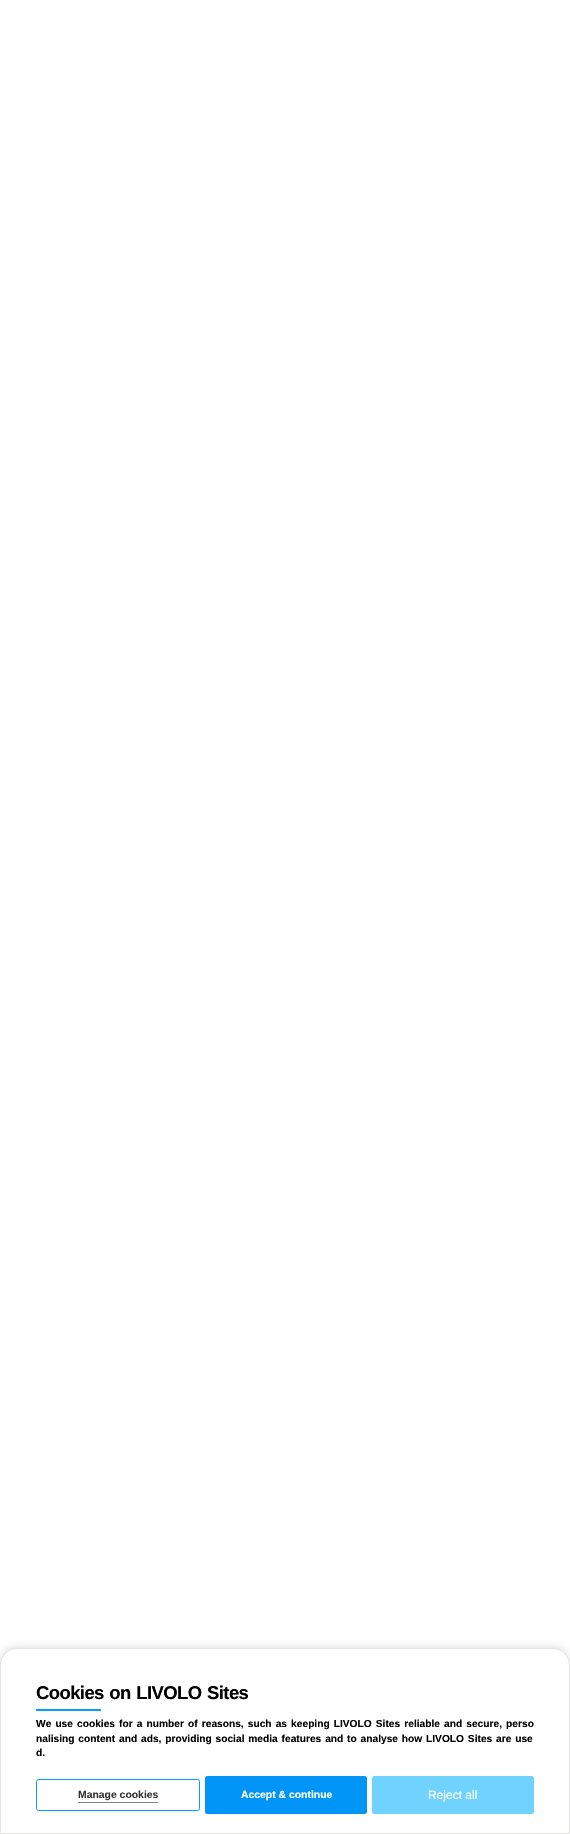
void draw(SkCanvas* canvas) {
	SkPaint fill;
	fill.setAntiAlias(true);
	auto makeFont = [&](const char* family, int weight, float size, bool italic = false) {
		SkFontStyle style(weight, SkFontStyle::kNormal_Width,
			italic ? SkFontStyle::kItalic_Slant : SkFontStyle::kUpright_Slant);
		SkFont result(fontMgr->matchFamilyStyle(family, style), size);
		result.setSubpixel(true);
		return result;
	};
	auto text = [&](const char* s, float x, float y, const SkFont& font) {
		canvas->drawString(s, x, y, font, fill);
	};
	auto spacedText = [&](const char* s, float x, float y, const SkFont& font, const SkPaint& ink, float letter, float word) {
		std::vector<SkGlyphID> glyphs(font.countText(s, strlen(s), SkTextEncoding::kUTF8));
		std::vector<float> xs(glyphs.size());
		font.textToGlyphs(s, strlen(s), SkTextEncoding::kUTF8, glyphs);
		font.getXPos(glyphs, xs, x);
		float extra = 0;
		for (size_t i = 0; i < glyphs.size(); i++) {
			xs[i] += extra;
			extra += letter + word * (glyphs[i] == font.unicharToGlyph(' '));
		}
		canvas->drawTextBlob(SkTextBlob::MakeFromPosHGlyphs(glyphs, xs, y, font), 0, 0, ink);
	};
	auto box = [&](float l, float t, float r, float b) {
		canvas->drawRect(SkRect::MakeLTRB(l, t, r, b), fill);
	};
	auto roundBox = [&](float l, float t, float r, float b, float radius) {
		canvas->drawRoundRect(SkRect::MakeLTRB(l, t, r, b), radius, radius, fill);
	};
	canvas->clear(0xFFFFFFFF);
	fill.setColor(0x1A000000);
	fill.setMaskFilter(SkMaskFilter::MakeBlur(kNormal_SkBlurStyle, 3));
	canvas->drawRoundRect(SkRect::MakeLTRB(0, 1646, 570, 1832), 17, 17, fill);
	fill.setMaskFilter(nullptr);
	fill.setColor(0xFFFFFFFF);
	canvas->drawPath(SkPathBuilder().moveTo(17, 1648.5f).lineTo(553, 1648.5f).cubicTo(562, 1648.5f, 569.5f, 1656, 569.5f, 1665).lineTo(569.5f, 1833.5f).lineTo(0.5f, 1833.5f).lineTo(0.5f, 1665).cubicTo(0.5f, 1656, 8, 1648.5f, 17, 1648.5f).close().detach(), fill);
	fill.setStyle(SkPaint::kStroke_Style);
	fill.setStrokeWidth(1);
	fill.setColor(0xFFE4E4E1);
	canvas->drawPath(SkPathBuilder().moveTo(17, 1648.5f).lineTo(553, 1648.5f).cubicTo(562, 1648.5f, 569.5f, 1656, 569.5f, 1665).lineTo(569.5f, 1833.5f).lineTo(0.5f, 1833.5f).lineTo(0.5f, 1665).cubicTo(0.5f, 1656, 8, 1648.5f, 17, 1648.5f).close().detach(), fill);
	fill.setStyle(SkPaint::kFill_Style);
	fill.setColor(0xFF009FFF);
	box(36, 1709, 101, 1711);
	fill.setColor(0xFF848483);
	box(78, 1802, 158, 1803);
	fill.setStyle(SkPaint::kStroke_Style);
	fill.setColor(0xFF009FFF);
	canvas->drawRoundRect(SkRect::MakeLTRB(36.5f, 1779.5f, 199.5f, 1810.5f), 2, 2, fill);
	fill.setStyle(SkPaint::kFill_Style);
	fill.setColor(0xFF0095F6);
	roundBox(205, 1776, 367, 1814, 2.5f);
	fill.setColor(0xFF70D3FF);
	roundBox(372, 1776, 534, 1814, 2.5f);
	auto font1 = makeFont("Liberation Sans", 700, 18.5f);
	fill.setColor(0xFF000000);
	spacedText("Cookies on LIVOLO Sites", 36, 1699, font1, fill, -0.6f, 1);
	auto font2 = makeFont("Liberation Sans", 700, 10.2f);
	spacedText("We use cookies for a number of reasons, such as keeping LIVOLO Sites reliable and secure, perso", 36, 1727, font2, fill, 0, 1.25f);
	spacedText("nalising content and ads, providing social media features and to analyse how LIVOLO Sites are use", 36, 1742, font2, fill, 0, 1);
	text("d.", 36, 1756, font2);
	auto font3 = makeFont("Liberation Sans", 700, 10.4f);
	fill.setColor(0xFF333333);
	text("Manage cookies", 78, 1798, font3);
	fill.setColor(0xFFFFFFFF);
	text("Accept & continue", 241, 1798, font3);
	auto font4 = makeFont("Liberation Sans", 400, 12);
	text("Reject all", 428, 1799, font4);
}
